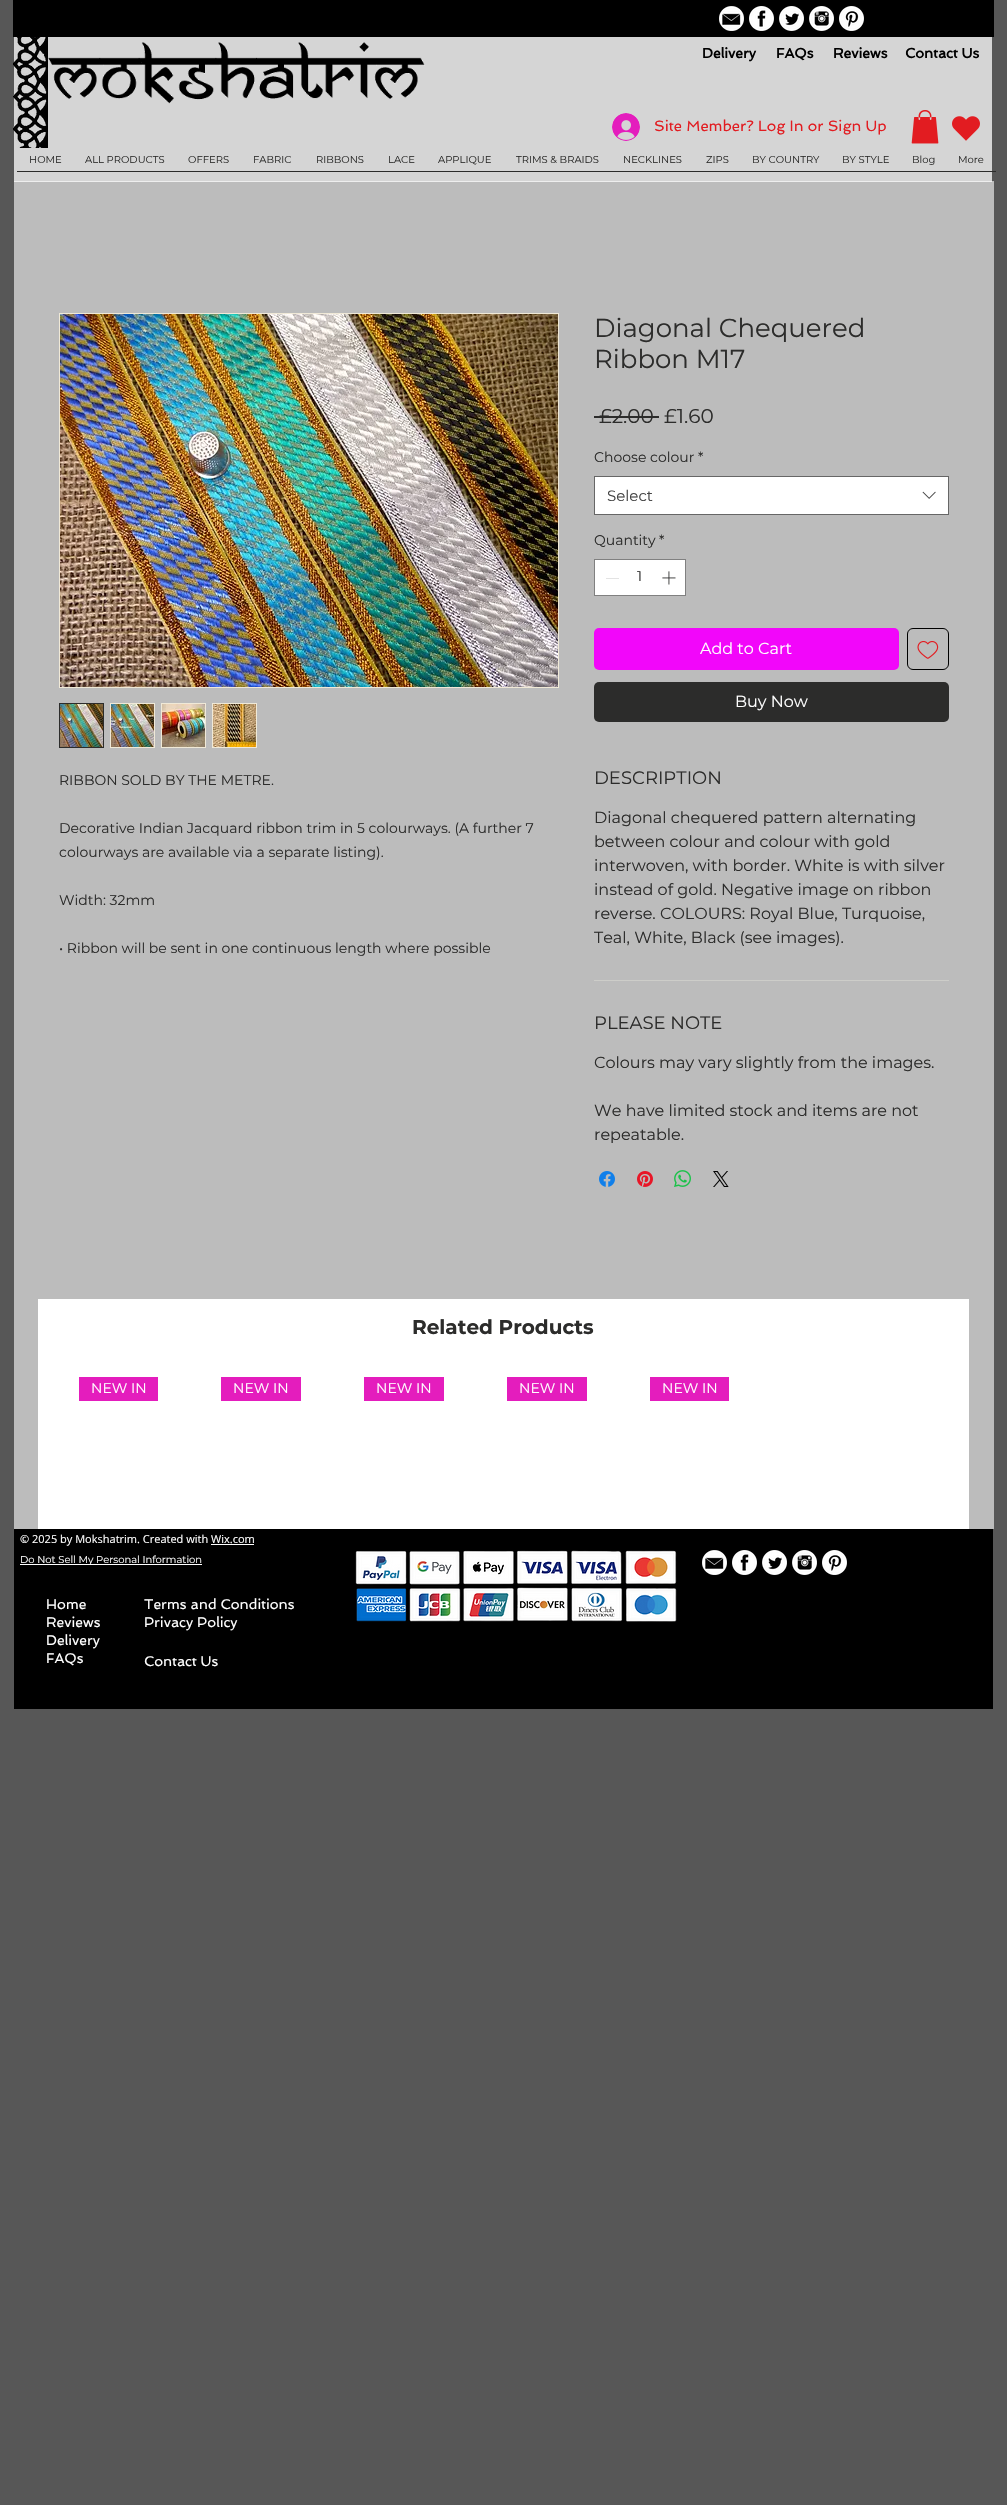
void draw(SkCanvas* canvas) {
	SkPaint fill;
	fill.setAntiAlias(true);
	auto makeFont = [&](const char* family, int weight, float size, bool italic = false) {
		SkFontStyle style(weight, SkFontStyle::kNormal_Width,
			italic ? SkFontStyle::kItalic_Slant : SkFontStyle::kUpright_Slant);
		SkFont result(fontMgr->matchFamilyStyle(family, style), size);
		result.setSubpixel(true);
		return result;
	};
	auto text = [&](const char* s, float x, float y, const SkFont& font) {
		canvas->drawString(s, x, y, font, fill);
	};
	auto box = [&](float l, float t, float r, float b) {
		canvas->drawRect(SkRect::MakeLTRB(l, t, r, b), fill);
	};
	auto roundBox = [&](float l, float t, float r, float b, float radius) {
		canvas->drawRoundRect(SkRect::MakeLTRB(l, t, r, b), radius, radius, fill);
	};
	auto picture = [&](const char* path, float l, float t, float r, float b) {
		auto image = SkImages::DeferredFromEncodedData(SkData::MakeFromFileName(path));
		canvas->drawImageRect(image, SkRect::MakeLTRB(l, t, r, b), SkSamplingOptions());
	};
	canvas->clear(0xFF575757);
	fill.setColor(0xFF000000);
	box(13, 0, 994, 37);
	picture("image0.png", 719, 6, 744, 31);
	picture("image1.png", 749, 6, 774, 31);
	picture("image2.png", 779, 6, 804, 31);
	picture("image3.png", 809, 6, 834, 31);
	picture("image4.png", 839, 6, 864, 31);
	fill.setColor(0xFFD5D5D5);
	box(14, 37, 992, 181);
	picture("image5.png", 13, 37, 48, 148);
	fill.setColor(0xFFBCBCBC);
	box(14, 181, 994, 1529);
	fill.setColor(0xFFEEEEEE);
	box(14, 181, 992, 182);
	picture("image6.png", 48, 42, 425, 104);
	picture("image7.png", 612, 113, 640, 141);
	picture("image8.png", 911, 110, 939, 144);
	picture("image9.png", 952, 116, 980, 141);
	fill.setColor(0xFF2C2C2B);
	box(17, 171, 996, 172);
	fill.setStyle(SkPaint::kStroke_Style);
	fill.setStrokeWidth(1);
	fill.setColor(0xFFF0E9D7);
	canvas->drawRect(SkRect::MakeLTRB(59.5f, 313.5f, 558.5f, 687.5f), fill);
	picture("image10.png", 60, 314, 558, 687);
	fill.setColor(0xFF2C2C2B);
	canvas->drawRect(SkRect::MakeLTRB(59.5f, 703.5f, 103.5f, 747.5f), fill);
	picture("image11.png", 60, 704, 103, 747);
	fill.setColor(0xFFF0E9D7);
	canvas->drawRect(SkRect::MakeLTRB(110.5f, 703.5f, 154.5f, 747.5f), fill);
	picture("image12.png", 111, 704, 154, 747);
	canvas->drawRect(SkRect::MakeLTRB(161.5f, 703.5f, 205.5f, 747.5f), fill);
	picture("image13.png", 162, 704, 205, 747);
	canvas->drawRect(SkRect::MakeLTRB(212.5f, 703.5f, 256.5f, 747.5f), fill);
	picture("image14.png", 213, 704, 256, 747);
	fill.setStyle(SkPaint::kFill_Style);
	fill.setColor(0xFF2C2C2B);
	box(594, 416, 659, 418);
	fill.setColor(0xFFFFFFFF);
	canvas->drawRect(SkRect::MakeLTRB(594.5f, 476.5f, 948.5f, 514.5f), fill);
	fill.setStyle(SkPaint::kStroke_Style);
	fill.setColor(0xFF666666);
	canvas->drawRect(SkRect::MakeLTRB(594.5f, 476.5f, 948.5f, 514.5f), fill);
	picture("image15.png", 922, 491, 936, 499);
	fill.setStyle(SkPaint::kFill_Style);
	fill.setColor(0xFFFFFFFF);
	canvas->drawRect(SkRect::MakeLTRB(594.5f, 559.5f, 685.5f, 595.5f), fill);
	fill.setStyle(SkPaint::kStroke_Style);
	fill.setColor(0xFF808080);
	canvas->drawRect(SkRect::MakeLTRB(594.5f, 559.5f, 685.5f, 595.5f), fill);
	fill.setStyle(SkPaint::kFill_Style);
	fill.setColor(0xFFE3E3E3);
	box(606, 578, 619, 579);
	picture("image16.png", 662, 571, 676, 585);
	fill.setColor(0xFFF206FA);
	roundBox(594, 628, 899, 670, 5);
	fill.setStyle(SkPaint::kStroke_Style);
	fill.setColor(0xFF000000);
	canvas->drawRoundRect(SkRect::MakeLTRB(907.5f, 628.5f, 948.5f, 669.5f), 5.5f, 5.5f, fill);
	picture("image17.png", 917, 641, 939, 659);
	fill.setStyle(SkPaint::kFill_Style);
	fill.setColor(0xFF2C2C2B);
	roundBox(594, 682, 949, 722, 5);
	fill.setColor(0xFFCDCDC9);
	box(594, 980, 949, 981);
	picture("image18.png", 599, 1171, 615, 1187);
	picture("image19.png", 637, 1171, 653, 1187);
	picture("image20.png", 674, 1170, 691, 1187);
	picture("image21.png", 713, 1171, 729, 1187);
	fill.setColor(0xFFFFFFFF);
	box(38, 1299, 969, 1529);
	fill.setColor(0xFFE41DBD);
	box(79, 1377, 158, 1401);
	box(221, 1377, 301, 1401);
	box(364, 1377, 444, 1401);
	box(507, 1377, 587, 1401);
	box(650, 1377, 729, 1401);
	fill.setColor(0xFF000000);
	box(14, 1529, 993, 1709);
	fill.setColor(0xFFFFFFFF);
	box(211, 1544, 254, 1545);
	box(20, 1564, 202, 1565);
	picture("image22.png", 355, 1550, 677, 1622);
	picture("image0.png", 702, 1550, 727, 1575);
	picture("image1.png", 732, 1550, 757, 1575);
	picture("image2.png", 762, 1550, 787, 1575);
	picture("image3.png", 792, 1550, 817, 1575);
	picture("image4.png", 822, 1550, 847, 1575);
	auto font1 = makeFont("Spinnaker", 700, 14);
	fill.setColor(0xFF000000);
	text("Delivery", 702, 58, font1);
	text("FAQs", 776, 58, font1);
	text("Reviews", 833, 58, font1);
	text("Contact Us", 905, 58, font1);
	auto font2 = makeFont("Spinnaker", 400, 15);
	fill.setColor(0xFFE21C21);
	text("Site Member? Log In or Sign Up", 654, 131, font2);
	auto font3 = makeFont("Montserrat", 400, 10);
	fill.setColor(0xFF2C2C2B);
	text("HOME", 29, 163, font3);
	text("ALL PRODUCTS", 85, 163, font3);
	text("OFFERS", 188, 163, font3);
	text("FABRIC", 253, 163, font3);
	text("RIBBONS", 316, 163, font3);
	text("LACE", 388, 163, font3);
	text("APPLIQUE", 438, 163, font3);
	text("TRIMS & BRAIDS", 516, 163, font3);
	text("NECKLINES", 623, 163, font3);
	text("ZIPS", 706, 163, font3);
	text("BY COUNTRY", 752, 163, font3);
	text("BY STYLE", 842, 163, font3);
	text("Blog", 912, 163, font3);
	text("More", 958, 163, font3);
	auto font4 = makeFont("Montserrat", 400, 14);
	text("RIBBON SOLD BY THE METRE.", 59, 785, font4);
	text("Decorative Indian Jacquard ribbon trim in 5 colourways. (A further 7", 59, 833, font4);
	text("colourways are available via a separate listing).", 59, 857, font4);
	text("Width: 32mm", 59, 905, font4);
	text("• Ribbon will be sent in one continuous length where possible", 59, 953, font4);
	auto font5 = makeFont("Montserrat", 400, 26);
	text("Diagonal Chequered", 594, 337, font5);
	text("Ribbon M17", 594, 368, font5);
	auto font6 = makeFont("Montserrat", 400, 20);
	text("£2.00", 599, 423, font6);
	text("£1.60", 664, 423, font6);
	text("Choose colour", 594, 462, font4);
	text("*", 698, 462, font4);
	auto font7 = makeFont("Montserrat", 400, 15);
	fill.setColor(0xFF444444);
	text("Select", 607, 501, font7);
	fill.setColor(0xFF2C2C2B);
	text("Quantity", 594, 545, font4);
	text("*", 659, 545, font4);
	text("1", 637, 581, font4);
	auto font8 = makeFont("Montserrat", 400, 16);
	fill.setColor(0xFFFFFFFF);
	text("Add to Cart", 700, 654, font8);
	text("Buy Now", 735, 707, font8);
	auto font9 = makeFont("Montserrat", 400, 18);
	fill.setColor(0xFF2C2C2B);
	text("DESCRIPTION", 594, 784, font9);
	text("Diagonal chequered pattern alternating", 594, 823, font8);
	text("between colour and colour with gold", 594, 847, font8);
	text("interwoven, with border. White is with silver", 594, 871, font8);
	text("instead of gold. Negative image on ribbon", 594, 895, font8);
	text("reverse. COLOURS: Royal Blue, Turquoise,", 594, 919, font8);
	text("Teal, White, Black (see images).", 594, 943, font8);
	text("PLEASE NOTE", 594, 1029, font9);
	text("Colours may vary slightly from the images.", 594, 1068, font8);
	text("We have limited stock and items are not", 594, 1116, font8);
	text("repeatable.", 594, 1140, font8);
	auto font10 = makeFont("Montserrat", 700, 20);
	text("Related Products", 412, 1334, font10);
	fill.setColor(0xFFFFFFFF);
	text("NEW IN", 91, 1393, font4);
	text("NEW IN", 233, 1393, font4);
	text("NEW IN", 376, 1393, font4);
	text("NEW IN", 519, 1393, font4);
	text("NEW IN", 662, 1393, font4);
	auto font11 = makeFont("Open Sans", 400, 11);
	text("© 2025 by Mokshatrim. Created with Wix.com", 20, 1543, font11);
	text("Do Not Sell My Personal Information", 20, 1563, font3);
	auto font12 = makeFont("Spinnaker", 400, 14);
	text("Home", 46, 1609, font12);
	text("Reviews", 46, 1627, font12);
	text("Delivery", 46, 1645, font12);
	text("FAQs", 46, 1663, font12);
	text("Terms and Conditions", 144, 1609, font12);
	text("Privacy Policy", 144, 1627, font12);
	text("Contact Us", 144, 1666, font12);
}
